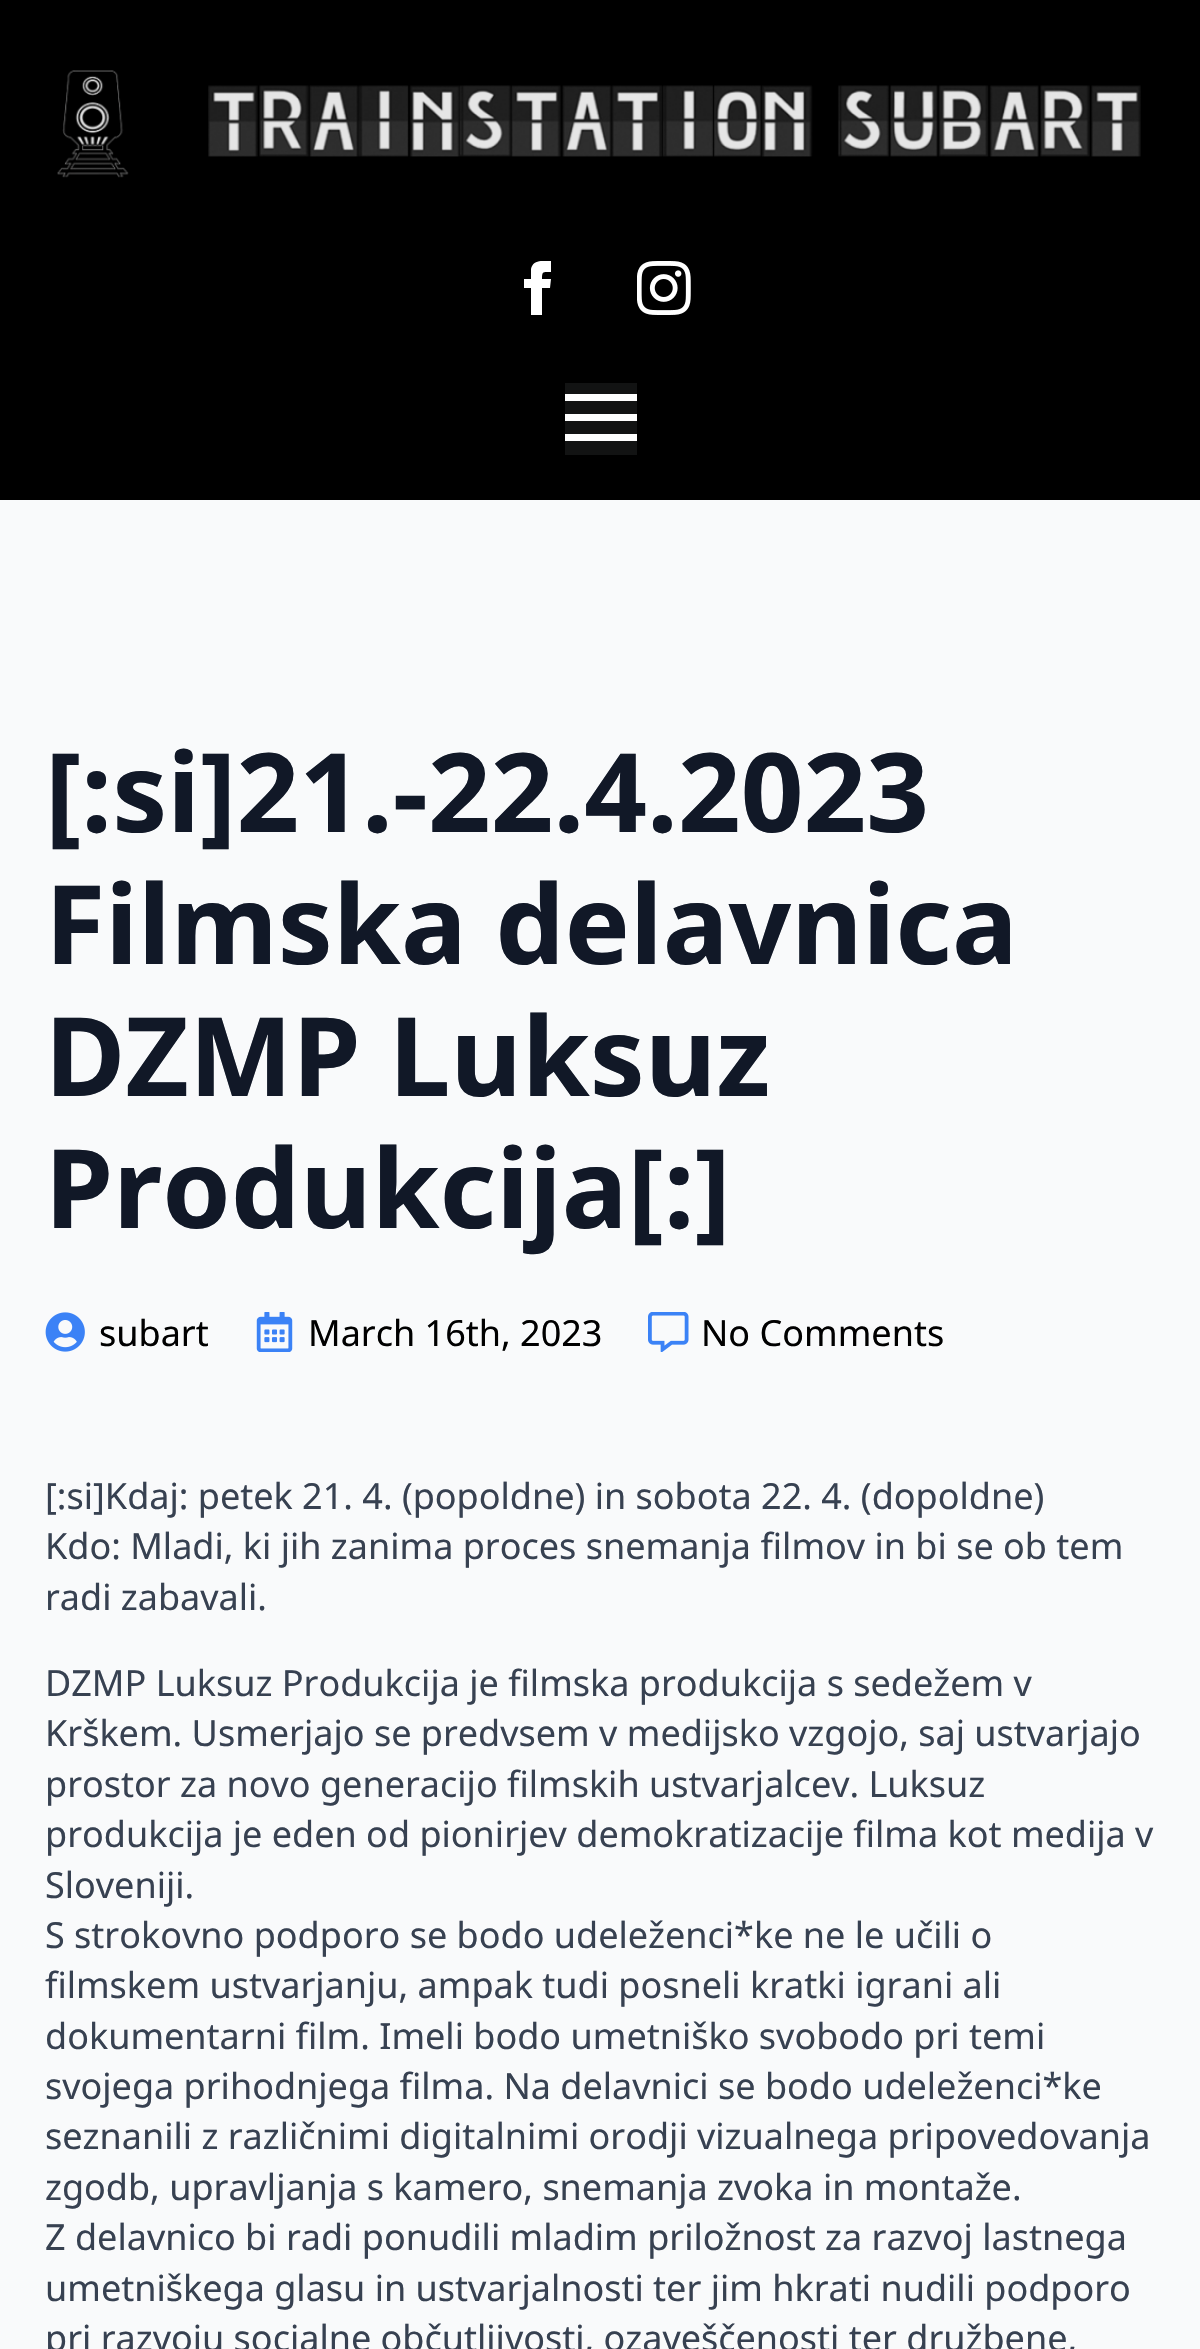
void draw(SkCanvas* canvas) {
	SkPaint fill;
	fill.setAntiAlias(true);
	auto makeFont = [&](const char* family, int weight, float size, bool italic = false) {
		SkFontStyle style(weight, SkFontStyle::kNormal_Width,
			italic ? SkFontStyle::kItalic_Slant : SkFontStyle::kUpright_Slant);
		SkFont result(fontMgr->matchFamilyStyle(family, style), size);
		result.setSubpixel(true);
		return result;
	};
	auto text = [&](const char* s, float x, float y, const SkFont& font) {
		canvas->drawString(s, x, y, font, fill);
	};
	auto box = [&](float l, float t, float r, float b) {
		canvas->drawRect(SkRect::MakeLTRB(l, t, r, b), fill);
	};
	auto picture = [&](const char* path, float l, float t, float r, float b) {
		auto image = SkImages::DeferredFromEncodedData(SkData::MakeFromFileName(path));
		canvas->drawImageRect(image, SkRect::MakeLTRB(l, t, r, b), SkSamplingOptions());
	};
	canvas->clear(0xFFF9FAFB);
	fill.setColor(0xFF000000);
	box(0, 0, 1200, 500);
	picture("image0.png", 57, 70, 1141, 178);
	canvas->save();
	canvas->clipRect(SkRect::MakeLTRB(511, 261, 565, 315));
	fill.setColor(0xFFFFFFFF);
	canvas->drawPath(SkPathBuilder().moveTo(531, 279).lineTo(524, 279).lineTo(524, 288).lineTo(531, 288).lineTo(531, 315).lineTo(542, 315).lineTo(542, 288).lineTo(550, 288).lineTo(551, 279).lineTo(542, 279).cubicTo(542, 271, 543, 272, 551, 272).lineTo(551, 261).cubicTo(544, 261, 533, 259, 531, 269).close().detach(), fill);
	canvas->restore();
	picture("image1.png", 637, 261, 691, 315);
	fill.setColor(0xFF121313);
	box(565, 383, 637, 455);
	fill.setColor(0xFFFFFFFF);
	box(565, 394, 637, 401);
	box(565, 414, 637, 421);
	box(565, 434, 637, 441);
	picture("image2.png", 45, 1312, 85, 1352);
	picture("image3.png", 256, 1312, 293, 1352);
	picture("image4.png", 648, 1312, 689, 1352);
	auto font1 = makeFont("Noto Sans", 700, 109.75f);
	fill.setColor(0xFF111827);
	text("[:si]21.-22.4.2023", 45, 832, font1);
	text("Filmska delavnica", 45, 964, font1);
	text("DZMP Luksuz", 45, 1096, font1);
	text("Produkcija[:]", 45, 1228, font1);
	auto font2 = makeFont("Noto Sans", 400, 36);
	fill.setColor(0xFF000000);
	text("subart", 99, 1346, font2);
	text("March 16th, 2023", 308, 1346, font2);
	text("No Comments", 701, 1346, font2);
	fill.setColor(0xFF374151);
	text("[:si]Kdaj: petek 21. 4. (popoldne) in sobota 22. 4. (dopoldne)", 45, 1509, font2);
	text("Kdo: Mladi, ki jih zanima proces snemanja filmov in bi se ob tem", 45, 1559, font2);
	text("radi zabavali.", 45, 1610, font2);
	text("DZMP Luksuz Produkcija je filmska produkcija s sedežem v", 45, 1696, font2);
	text("Krškem. Usmerjajo se predvsem v medijsko vzgojo, saj ustvarjajo", 45, 1746, font2);
	text("prostor za novo generacijo filmskih ustvarjalcev. Luksuz", 45, 1797, font2);
	text("produkcija je eden od pionirjev demokratizacije filma kot medija v", 45, 1847, font2);
	text("Sloveniji.", 45, 1898, font2);
	text("S strokovno podporo se bodo udeleženci*ke ne le učili o", 45, 1948, font2);
	text("filmskem ustvarjanju, ampak tudi posneli kratki igrani ali", 45, 1998, font2);
	text("dokumentarni film. Imeli bodo umetniško svobodo pri temi", 45, 2049, font2);
	text("svojega prihodnjega filma. Na delavnici se bodo udeleženci*ke", 45, 2099, font2);
	text("seznanili z različnimi digitalnimi orodji vizualnega pripovedovanja", 45, 2149, font2);
	text("zgodb, upravljanja s kamero, snemanja zvoka in montaže.", 45, 2200, font2);
	text("Z delavnico bi radi ponudili mladim priložnost za razvoj lastnega", 45, 2250, font2);
	text("umetniškega glasu in ustvarjalnosti ter jim hkrati nudili podporo", 45, 2301, font2);
	text("pri razvoju socialne občutljivosti, ozaveščenosti ter družbene,", 45, 2351, font2);
}
